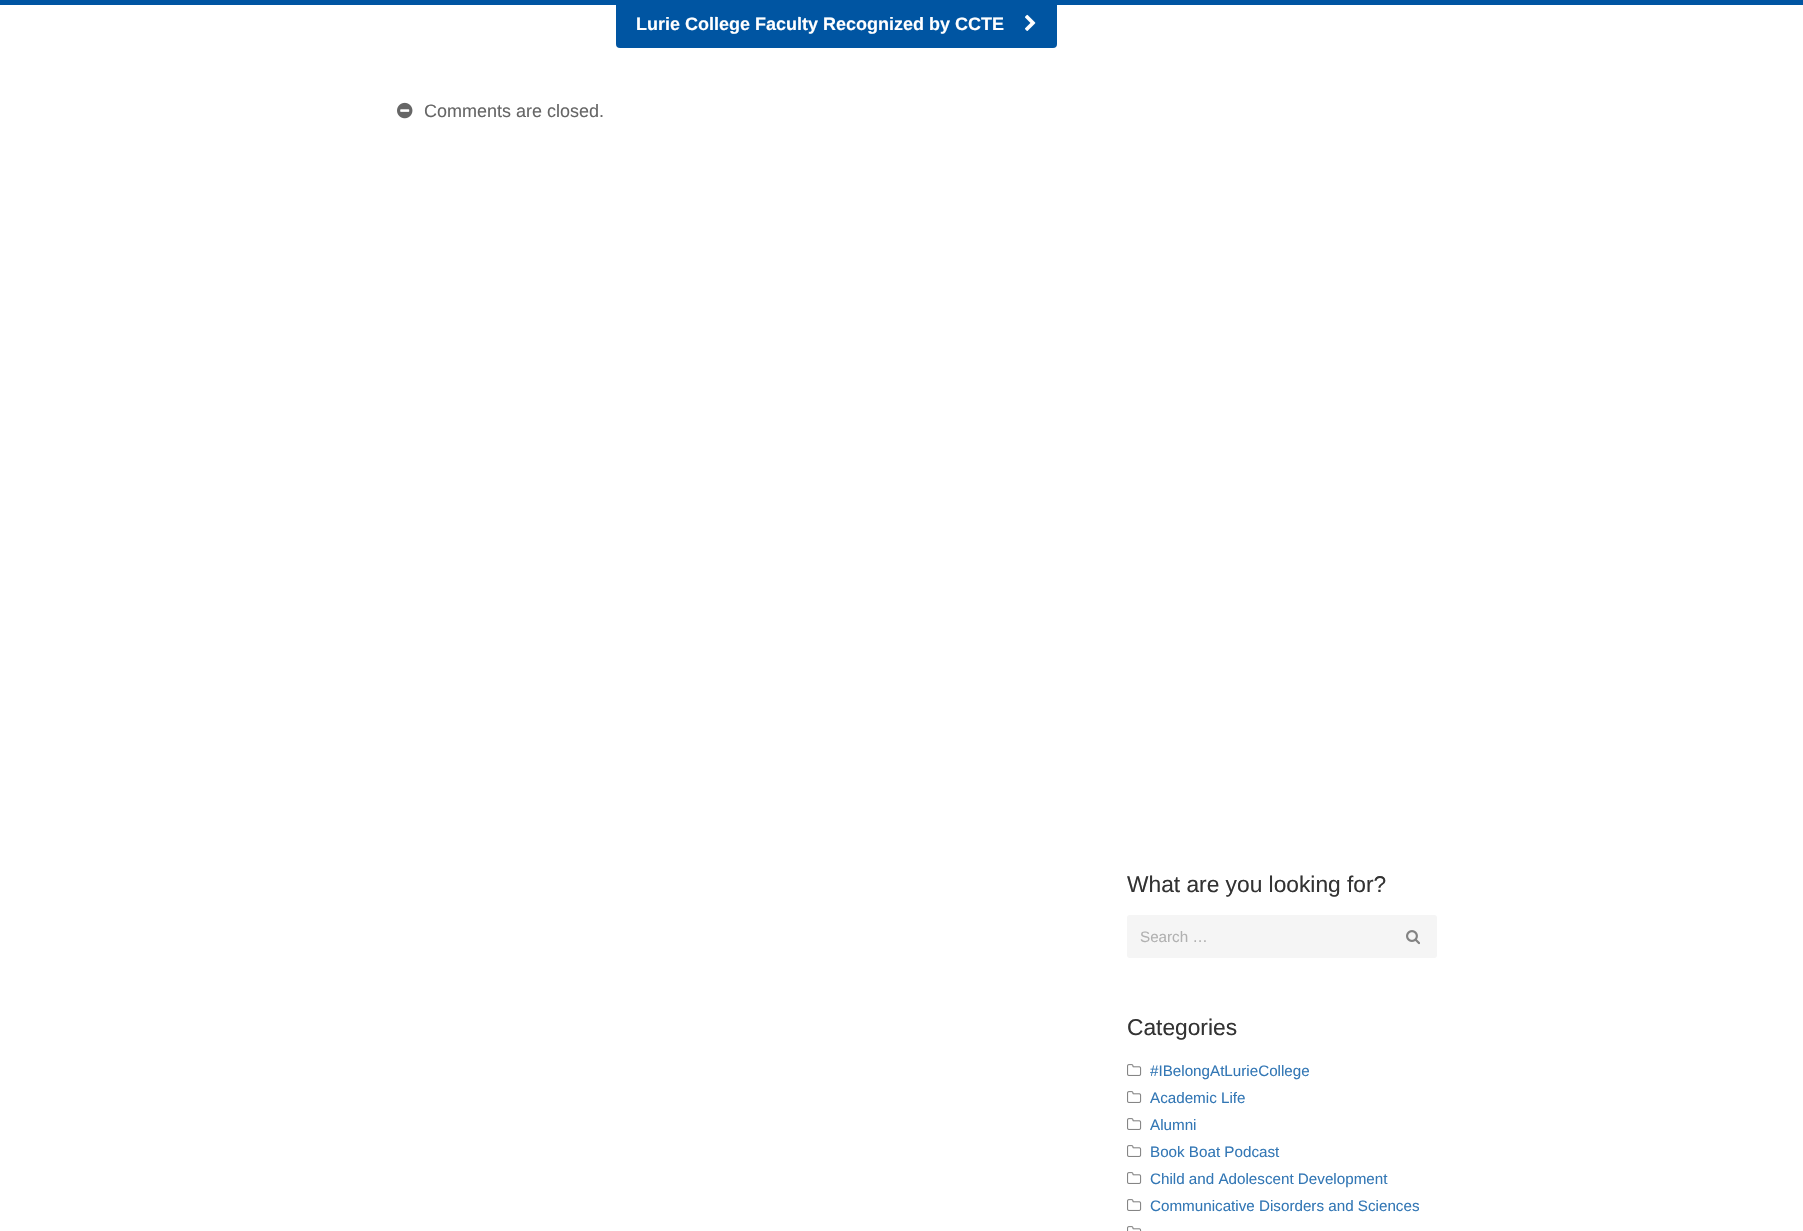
void draw(SkCanvas* canvas) {
	SkPaint fill;
	fill.setAntiAlias(true);
	auto makeFont = [&](const char* family, int weight, float size, bool italic = false) {
		SkFontStyle style(weight, SkFontStyle::kNormal_Width,
			italic ? SkFontStyle::kItalic_Slant : SkFontStyle::kUpright_Slant);
		SkFont result(fontMgr->matchFamilyStyle(family, style), size);
		result.setSubpixel(true);
		return result;
	};
	auto text = [&](const char* s, float x, float y, const SkFont& font) {
		canvas->drawString(s, x, y, font, fill);
	};
	auto box = [&](float l, float t, float r, float b) {
		canvas->drawRect(SkRect::MakeLTRB(l, t, r, b), fill);
	};
	auto roundBox = [&](float l, float t, float r, float b, float radius) {
		canvas->drawRoundRect(SkRect::MakeLTRB(l, t, r, b), radius, radius, fill);
	};
	auto picture = [&](const char* path, float l, float t, float r, float b) {
		auto image = SkImages::DeferredFromEncodedData(SkData::MakeFromFileName(path));
		canvas->drawImageRect(image, SkRect::MakeLTRB(l, t, r, b), SkSamplingOptions());
	};
	canvas->clear(0xFFFFFFFF);
	fill.setColor(0xFF0055A2);
	roundBox(616, 0, 1057, 48, 4);
	box(0, 0, 1803, 5);
	picture("image0.png", 1025, 14, 1036, 31);
	picture("image1.png", 397, 102, 413, 119);
	fill.setColor(0xFFF5F5F5);
	roundBox(1127, 915, 1437, 958, 3);
	picture("image2.png", 1406, 930, 1420, 945);
	picture("image3.png", 1127, 1064, 1142, 1076);
	picture("image3.png", 1127, 1091, 1142, 1103);
	picture("image3.png", 1127, 1118, 1142, 1130);
	picture("image3.png", 1127, 1145, 1142, 1157);
	picture("image3.png", 1127, 1172, 1142, 1184);
	picture("image3.png", 1127, 1199, 1142, 1211);
	picture("image4.png", 1127, 1226, 1142, 1231);
	auto font1 = makeFont("Liberation Sans", 700, 18);
	fill.setColor(0xFFFFFFFF);
	text("Lurie College Faculty Recognized by CCTE", 636, 30, font1);
	auto font2 = makeFont("Liberation Sans", 400, 18);
	fill.setColor(0xFF666666);
	text("Comments are closed.", 424, 117, font2);
	auto font3 = makeFont("Liberation Sans", 400, 22.75f);
	fill.setColor(0xFF333333);
	text("What are you looking for?", 1127, 892, font3);
	auto font4 = makeFont("Liberation Sans", 400, 15.2f);
	fill.setColor(0xFFB1B1B1);
	text("Search …", 1140, 942, font4);
	fill.setColor(0xFF333333);
	text("Categories", 1127, 1035, font3);
	fill.setColor(0xFF3377B5);
	text("#IBelongAtLurieCollege", 1150, 1076, font4);
	text("Academic Life", 1150, 1103, font4);
	text("Alumni", 1150, 1130, font4);
	text("Book Boat Podcast", 1150, 1157, font4);
	text("Child and Adolescent Development", 1150, 1184, font4);
	text("Communicative Disorders and Sciences", 1150, 1211, font4);
}
